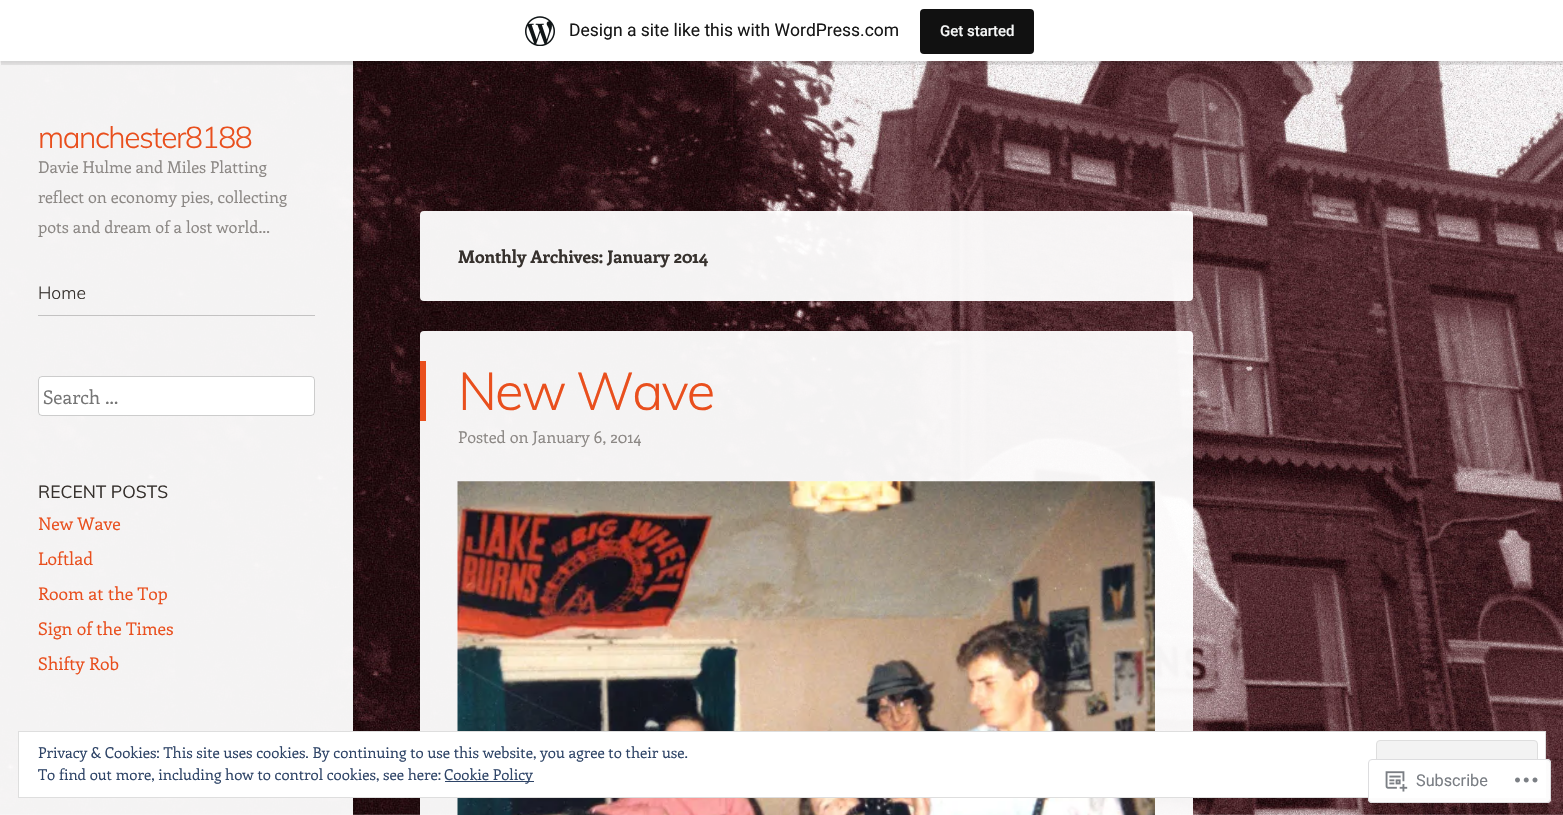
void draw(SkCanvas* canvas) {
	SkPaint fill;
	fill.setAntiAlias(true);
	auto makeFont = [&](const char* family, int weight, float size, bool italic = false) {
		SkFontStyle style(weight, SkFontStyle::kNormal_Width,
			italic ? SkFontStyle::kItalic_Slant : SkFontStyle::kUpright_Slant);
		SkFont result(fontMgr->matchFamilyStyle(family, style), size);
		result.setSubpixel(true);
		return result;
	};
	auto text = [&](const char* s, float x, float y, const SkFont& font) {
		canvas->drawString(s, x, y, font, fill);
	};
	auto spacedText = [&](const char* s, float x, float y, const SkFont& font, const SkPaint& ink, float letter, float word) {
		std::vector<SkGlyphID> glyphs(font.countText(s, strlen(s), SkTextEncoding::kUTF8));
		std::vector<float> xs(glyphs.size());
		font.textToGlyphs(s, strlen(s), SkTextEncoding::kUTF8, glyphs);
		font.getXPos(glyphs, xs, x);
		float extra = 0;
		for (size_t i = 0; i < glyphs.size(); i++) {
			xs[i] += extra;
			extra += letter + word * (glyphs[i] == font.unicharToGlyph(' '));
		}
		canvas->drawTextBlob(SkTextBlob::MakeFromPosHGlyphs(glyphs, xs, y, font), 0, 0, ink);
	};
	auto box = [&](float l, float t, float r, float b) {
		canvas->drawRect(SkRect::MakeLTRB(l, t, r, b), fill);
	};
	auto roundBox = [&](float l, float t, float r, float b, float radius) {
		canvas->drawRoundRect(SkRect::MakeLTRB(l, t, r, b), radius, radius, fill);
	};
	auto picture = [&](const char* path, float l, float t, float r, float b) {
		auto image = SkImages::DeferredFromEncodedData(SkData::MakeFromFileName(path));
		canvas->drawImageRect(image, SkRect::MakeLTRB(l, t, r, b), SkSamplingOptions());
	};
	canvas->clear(0xFFFFFFFF);
	picture("image0.png", 0, 61, 1563, 815);
	fill.setColor(0xF2FFFFFF);
	box(0, 61, 353, 815);
	fill.setColor(0x0D000000);
	fill.setMaskFilter(SkMaskFilter::MakeBlur(kNormal_SkBlurStyle, 1));
	canvas->drawRect(SkRect::MakeLTRB(0, 1, 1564, 63), fill);
	fill.setMaskFilter(nullptr);
	fill.setColor(0x14000000);
	canvas->drawPath(SkPathBuilder().moveTo(1, 61).lineTo(1, 65).lineTo(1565, 65).lineTo(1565, 4).lineTo(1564, 4).lineTo(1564, 61).close().detach(), fill);
	fill.setColor(0xFFFFFFFF);
	box(0, 0, 1563, 61);
	picture("image1.png", 525, 16, 555, 46);
	fill.setColor(0xFF111111);
	roundBox(920, 9, 1034, 54, 4);
	fill.setColor(0xFFC3C2C2);
	box(38, 315, 315, 316);
	fill.setColor(0xF2FFFFFF);
	roundBox(420, 211, 1193, 301, 4);
	roundBox(420, 331, 1193, 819, 4);
	fill.setColor(0xFFE94F1D);
	box(420, 361, 426, 421);
	picture("image2.png", 457, 481, 1155, 815);
	fill.setColor(0xFFFFFFFF);
	roundBox(38, 376, 315, 416, 4);
	fill.setStyle(SkPaint::kStroke_Style);
	fill.setStrokeWidth(1);
	fill.setColor(0x33000000);
	canvas->drawRoundRect(SkRect::MakeLTRB(38.5f, 376.5f, 314.5f, 415.5f), 3.5f, 3.5f, fill);
	fill.setStyle(SkPaint::kFill_Style);
	fill.setColor(0xFFFFFFFF);
	canvas->drawRect(SkRect::MakeLTRB(18.5f, 731.5f, 1545.5f, 797.5f), fill);
	fill.setStyle(SkPaint::kStroke_Style);
	fill.setColor(0xFFDEDEDE);
	canvas->drawRect(SkRect::MakeLTRB(18.5f, 731.5f, 1545.5f, 797.5f), fill);
	fill.setStyle(SkPaint::kFill_Style);
	fill.setColor(0xFFF3F3F3);
	canvas->drawRoundRect(SkRect::MakeLTRB(1376.5f, 740.5f, 1537.5f, 788.5f), 3.5f, 3.5f, fill);
	fill.setStyle(SkPaint::kStroke_Style);
	fill.setColor(0xFFDEDEDE);
	canvas->drawRoundRect(SkRect::MakeLTRB(1376.5f, 740.5f, 1537.5f, 788.5f), 3.5f, 3.5f, fill);
	fill.setStyle(SkPaint::kFill_Style);
	fill.setColor(0xFF2E4467);
	box(445, 781, 534, 782);
	fill.setColor(0xFAFFFFFF);
	roundBox(1368, 759, 1551, 803, 4);
	fill.setStyle(SkPaint::kStroke_Style);
	fill.setColor(0xFADCDCDE);
	canvas->drawRoundRect(SkRect::MakeLTRB(1368.5f, 759.5f, 1550.5f, 802.5f), 3.5f, 3.5f, fill);
	picture("image3.png", 1385, 771, 1408, 792);
	picture("image4.png", 1515, 777, 1538, 783);
	auto font1 = makeFont("Roboto", 400, 17.5f);
	fill.setStyle(SkPaint::kFill_Style);
	fill.setColor(0xFF171717);
	text("Design a site like this with WordPress.com", 569, 36, font1);
	auto font2 = makeFont("Roboto", 500, 15);
	fill.setColor(0xFFF6F7F7);
	text("Get started", 940, 36, font2);
	auto font3 = makeFont("Muli", 300, 30);
	fill.setColor(0xFFE94F1D);
	spacedText("manchester8188", 38, 148, font3, fill, -1.4f, 0);
	auto font4 = makeFont("Enriqueta", 400, 16.25f);
	fill.setColor(0xFF8C8885);
	text("Davie Hulme and Miles Platting", 38, 173, font4);
	text("reflect on economy pies, collecting", 38, 203, font4);
	text("pots and dream of a lost world…", 38, 233, font4);
	auto font5 = makeFont("Muli", 300, 17.5f);
	fill.setColor(0xFF36312D);
	text("Home", 38, 299, font5);
	auto font6 = makeFont("Enriqueta", 700, 17.5f);
	text("Monthly Archives: January 2014", 458, 263, font6);
	auto font7 = makeFont("Muli", 300, 52.5f);
	fill.setColor(0xFFE94F1D);
	spacedText("New Wave", 458, 410, font7, fill, -2, 0);
	fill.setColor(0xFF8C8885);
	text("Posted on January 6, 2014", 458, 443, font4);
	auto font8 = makeFont("Enriqueta", 400, 18.75f);
	fill.setColor(0xFF757575);
	text("Search …", 43, 404, font8);
	auto font9 = makeFont("Muli", 400, 17.5f);
	fill.setColor(0xFF36312D);
	text("RECENT POSTS", 38, 498, font9);
	auto font10 = makeFont("Enriqueta", 400, 17.5f);
	fill.setColor(0xFFE94F1D);
	text("New Wave", 38, 530, font10);
	text("Loftlad", 38, 565, font10);
	text("Room at the Top", 38, 600, font10);
	text("Sign of the Times", 38, 635, font10);
	text("Shifty Rob", 38, 670, font10);
	auto font11 = makeFont("Enriqueta", 400, 15);
	fill.setColor(0xFF2E4467);
	text("Privacy & Cookies: This site uses cookies. By continuing to use this website, you agree to their use.", 38, 758, font11);
	text("To find out more, including how to control cookies, see here:", 38, 780, font11);
	text("Cookie Policy", 444, 780, font11);
	auto font12 = makeFont("Roboto", 400, 16.25f);
	fill.setColor(0xFF7A7E84);
	text("Subscribe", 1416, 786, font12);
}
